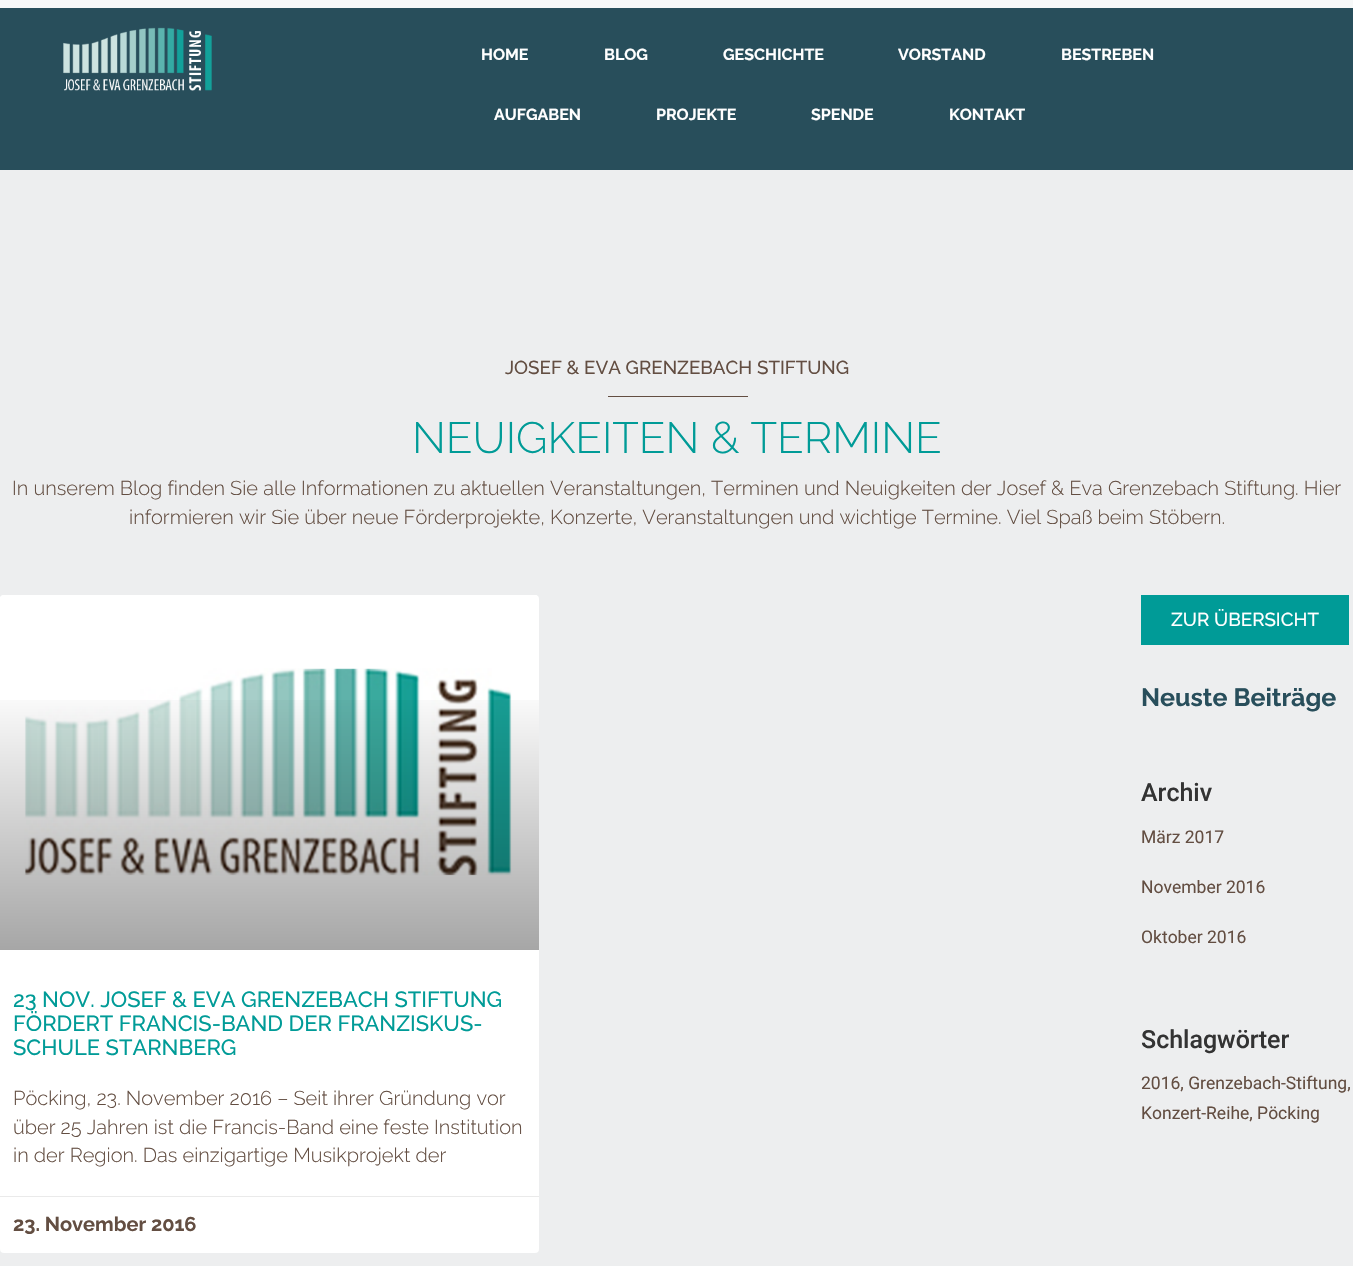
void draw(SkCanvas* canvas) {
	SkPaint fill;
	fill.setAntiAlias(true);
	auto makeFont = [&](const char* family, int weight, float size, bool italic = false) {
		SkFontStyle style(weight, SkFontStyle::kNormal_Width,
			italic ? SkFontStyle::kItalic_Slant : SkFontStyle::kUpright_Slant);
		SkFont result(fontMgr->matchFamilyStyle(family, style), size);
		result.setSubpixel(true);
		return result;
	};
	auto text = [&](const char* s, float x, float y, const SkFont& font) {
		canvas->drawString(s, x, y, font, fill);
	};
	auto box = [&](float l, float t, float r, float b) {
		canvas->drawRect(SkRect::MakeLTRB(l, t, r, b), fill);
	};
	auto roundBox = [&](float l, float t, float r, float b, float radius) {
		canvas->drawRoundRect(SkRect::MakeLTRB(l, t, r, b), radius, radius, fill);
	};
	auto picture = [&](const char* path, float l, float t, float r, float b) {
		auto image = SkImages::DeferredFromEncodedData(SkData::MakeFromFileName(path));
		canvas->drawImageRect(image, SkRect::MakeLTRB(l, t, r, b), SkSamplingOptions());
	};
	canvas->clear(0xFFEDEEEF);
	fill.setColor(0xFFF6F8F8);
	box(0, 0, 1353, 8);
	fill.setColor(0xFF284E5B);
	box(0, 8, 1353, 170);
	picture("image0.png", 63, 27, 212, 91);
	fill.setColor(0xFF634E42);
	box(608, 396, 748, 397);
	fill.setColor(0xFFFFFFFF);
	roundBox(0, 595, 539, 1253, 4);
	picture("image1.png", 0, 595, 537, 876);
	{
		const SkColor colors[] = {0x59000000, 0x00000000};
		const float stops[] = {0, 0.75f};
		const SkPoint ends[] = {{269, 950}, {269, 595}};
		fill.setShader(SkGradientShader::MakeLinear(ends, colors, stops, 2, SkTileMode::kClamp));
		fill.setAlpha(255);
	}
	box(0, 700, 539, 950);
	fill.setShader(nullptr);
	fill.setColor(0xFFEAEAEA);
	box(0, 1196, 539, 1197);
	fill.setColor(0xFF009B97);
	box(1141, 595, 1349, 645);
	auto font1 = makeFont("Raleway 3", 100, 16);
	fill.setColor(0xFFFFFFFF);
	text("HOME", 481, 60, font1);
	text("BLOG", 604, 60, font1);
	text("GESCHICHTE", 723, 60, font1);
	text("VORSTAND", 898, 60, font1);
	text("BESTREBEN", 1061, 60, font1);
	text("AUFGABEN", 494, 120, font1);
	text("PROJEKTE", 656, 120, font1);
	text("SPENDE", 811, 120, font1);
	text("KONTAKT", 949, 120, font1);
	auto font2 = makeFont("Raleway", 100, 18.75f);
	fill.setColor(0xFF634E42);
	text("JOSEF & EVA GRENZEBACH STIFTUNG", 505, 374, font2);
	auto font3 = makeFont("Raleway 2", 100, 43.75f);
	fill.setColor(0xFF009B97);
	text("NEUIGKEITEN & TERMINE", 412, 453, font3);
	auto font4 = makeFont("Raleway 2", 100, 20);
	fill.setColor(0xFF634E42);
	text("In unserem Blog finden Sie alle Informationen zu aktuellen Veranstaltungen, Terminen und Neuigkeiten der Josef & Eva Grenzebach Stiftung. Hier", 12, 495, font4);
	text("informieren wir Sie über neue Förderprojekte, Konzerte, Veranstaltungen und wichtige Termine. Viel Spaß beim Stöbern.", 129, 524, font4);
	auto font5 = makeFont("Raleway", 100, 21.9f);
	fill.setColor(0xFF009B97);
	text("23 NOV. JOSEF & EVA GRENZEBACH STIFTUNG", 13, 1007, font5);
	text("FÖRDERT FRANCIS-BAND DER FRANZISKUS-", 13, 1031, font5);
	text("SCHULE STARNBERG", 13, 1055, font5);
	fill.setColor(0xFF634E42);
	text("Pöcking, 23. November 2016 – Seit ihrer Gründung vor", 13, 1105, font4);
	text("über 25 Jahren ist die Francis-Band eine feste Institution", 13, 1134, font4);
	text("in der Region. Das einzigartige Musikprojekt der", 13, 1162, font4);
	auto font6 = makeFont("Raleway 3", 100, 20);
	text("23. November 2016", 13, 1231, font6);
	fill.setColor(0xFFFFFFFF);
	text("ZUR ÜBERSICHT", 1171, 626, font2);
	auto font7 = makeFont("Raleway 3", 100, 25);
	fill.setColor(0xFF284E5B);
	text("Neuste Beiträge", 1141, 706, font7);
	auto font8 = makeFont("Roboto", 500, 25);
	fill.setColor(0xFF333333);
	text("Archiv", 1141, 801, font8);
	auto font9 = makeFont("Roboto", 400, 17.5f);
	fill.setColor(0xFF634E42);
	text("März 2017", 1141, 843, font9);
	text("November 2016", 1141, 893, font9);
	text("Oktober 2016", 1141, 943, font9);
	fill.setColor(0xFF333333);
	text("Schlagwörter", 1141, 1048, font8);
	fill.setColor(0xFF634E42);
	text("2016, Grenzebach-Stiftung,", 1141, 1089, font9);
	text("Konzert-Reihe, Pöcking", 1141, 1119, font9);
}
